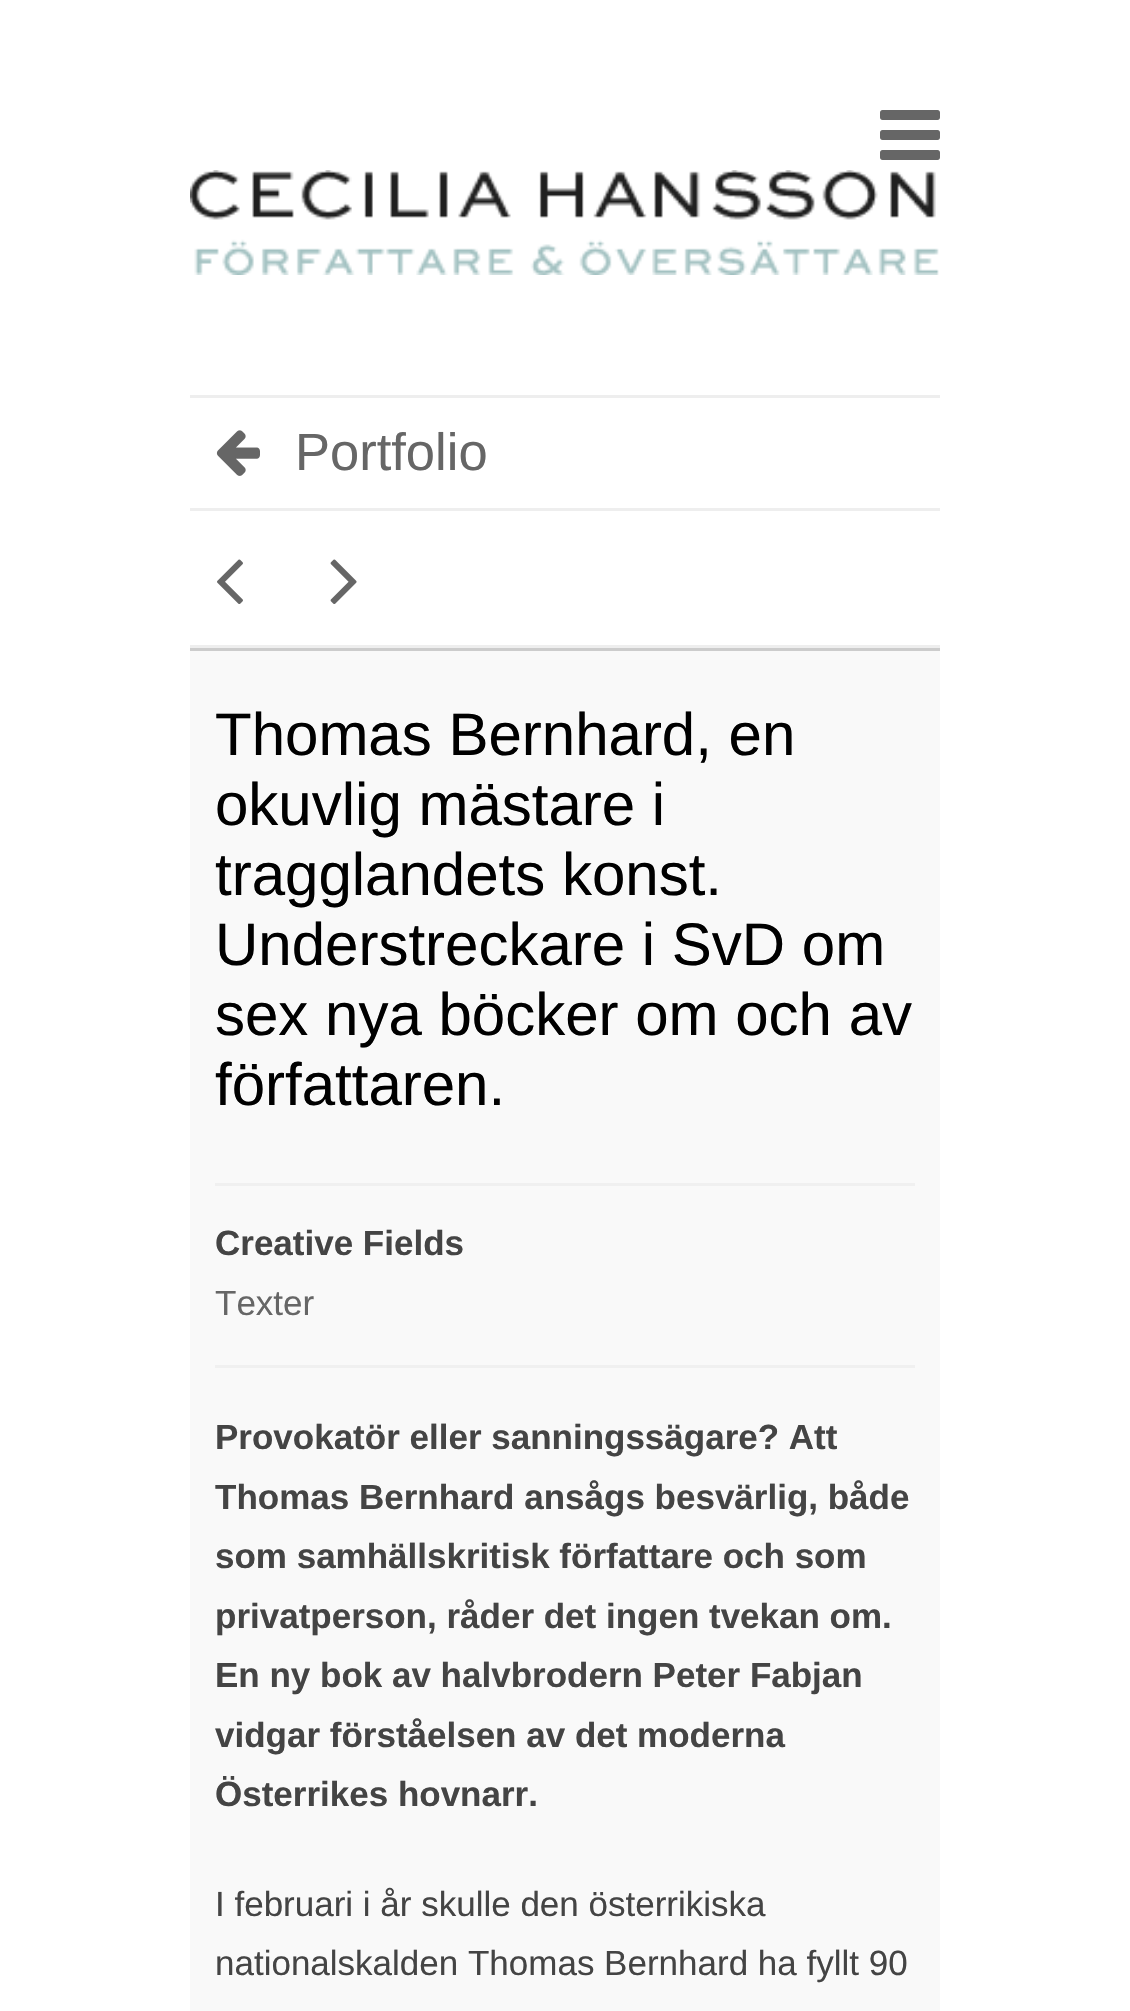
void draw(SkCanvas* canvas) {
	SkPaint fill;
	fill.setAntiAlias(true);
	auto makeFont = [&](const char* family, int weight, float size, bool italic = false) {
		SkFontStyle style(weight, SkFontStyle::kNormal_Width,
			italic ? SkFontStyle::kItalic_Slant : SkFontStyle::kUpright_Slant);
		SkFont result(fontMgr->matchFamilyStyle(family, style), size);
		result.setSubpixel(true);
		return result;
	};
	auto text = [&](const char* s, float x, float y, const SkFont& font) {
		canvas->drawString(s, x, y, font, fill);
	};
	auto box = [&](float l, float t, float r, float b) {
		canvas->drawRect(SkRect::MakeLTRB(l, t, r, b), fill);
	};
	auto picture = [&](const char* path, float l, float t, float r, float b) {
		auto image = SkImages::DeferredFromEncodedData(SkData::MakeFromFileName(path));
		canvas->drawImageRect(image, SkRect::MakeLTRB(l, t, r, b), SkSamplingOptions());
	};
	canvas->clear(0xFFFFFFFF);
	picture("image0.png", 880, 110, 940, 160);
	picture("image1.png", 190, 170, 939, 275);
	fill.setColor(0xFFEEEEEE);
	box(190, 395, 940, 398);
	box(190, 645, 940, 648);
	picture("image2.png", 216, 430, 260, 476);
	box(190, 508, 940, 511);
	picture("image3.png", 217, 559, 243, 604);
	picture("image4.png", 330, 559, 357, 604);
	fill.setColor(0xFFF9F9F9);
	box(190, 651, 940, 2011);
	fill.setColor(0xFFCCCCCC);
	box(190, 648, 940, 651);
	fill.setColor(0xFFF0F0F0);
	box(215, 1183, 915, 1186);
	box(215, 1365, 915, 1368);
	auto font1 = makeFont("Liberation Sans", 400, 52.5f);
	fill.setColor(0xFF666666);
	text("Portfolio", 295, 470, font1);
	auto font2 = makeFont("Liberation Sans", 400, 60);
	fill.setColor(0xFF000000);
	text("Thomas Bernhard, en", 215, 755, font2);
	text("okuvlig mästare i", 215, 825, font2);
	text("tragglandets konst.", 215, 895, font2);
	text("Understreckare i SvD om", 215, 965, font2);
	text("sex nya böcker om och av", 215, 1035, font2);
	text("författaren.", 215, 1105, font2);
	auto font3 = makeFont("Liberation Sans", 700, 35);
	fill.setColor(0xFF444444);
	text("Creative Fields", 215, 1255, font3);
	auto font4 = makeFont("Liberation Sans", 400, 35);
	fill.setColor(0xFF666666);
	text("Texter", 215, 1315, font4);
	fill.setColor(0xFF444444);
	text("Provokatör eller sanningssägare? Att", 215, 1449, font3);
	text("Thomas Bernhard ansågs besvärlig, både", 215, 1509, font3);
	text("som samhällskritisk författare och som", 215, 1568, font3);
	text("privatperson, råder det ingen tvekan om.", 215, 1628, font3);
	text("En ny bok av halvbrodern Peter Fabjan", 215, 1687, font3);
	text("vidgar förståelsen av det moderna", 215, 1747, font3);
	text("Österrikes hovnarr.", 215, 1806, font3);
	text("I februari i år skulle den österrikiska", 215, 1916, font4);
	text("nationalskalden Thomas Bernhard ha fyllt 90", 215, 1975, font4);
}
